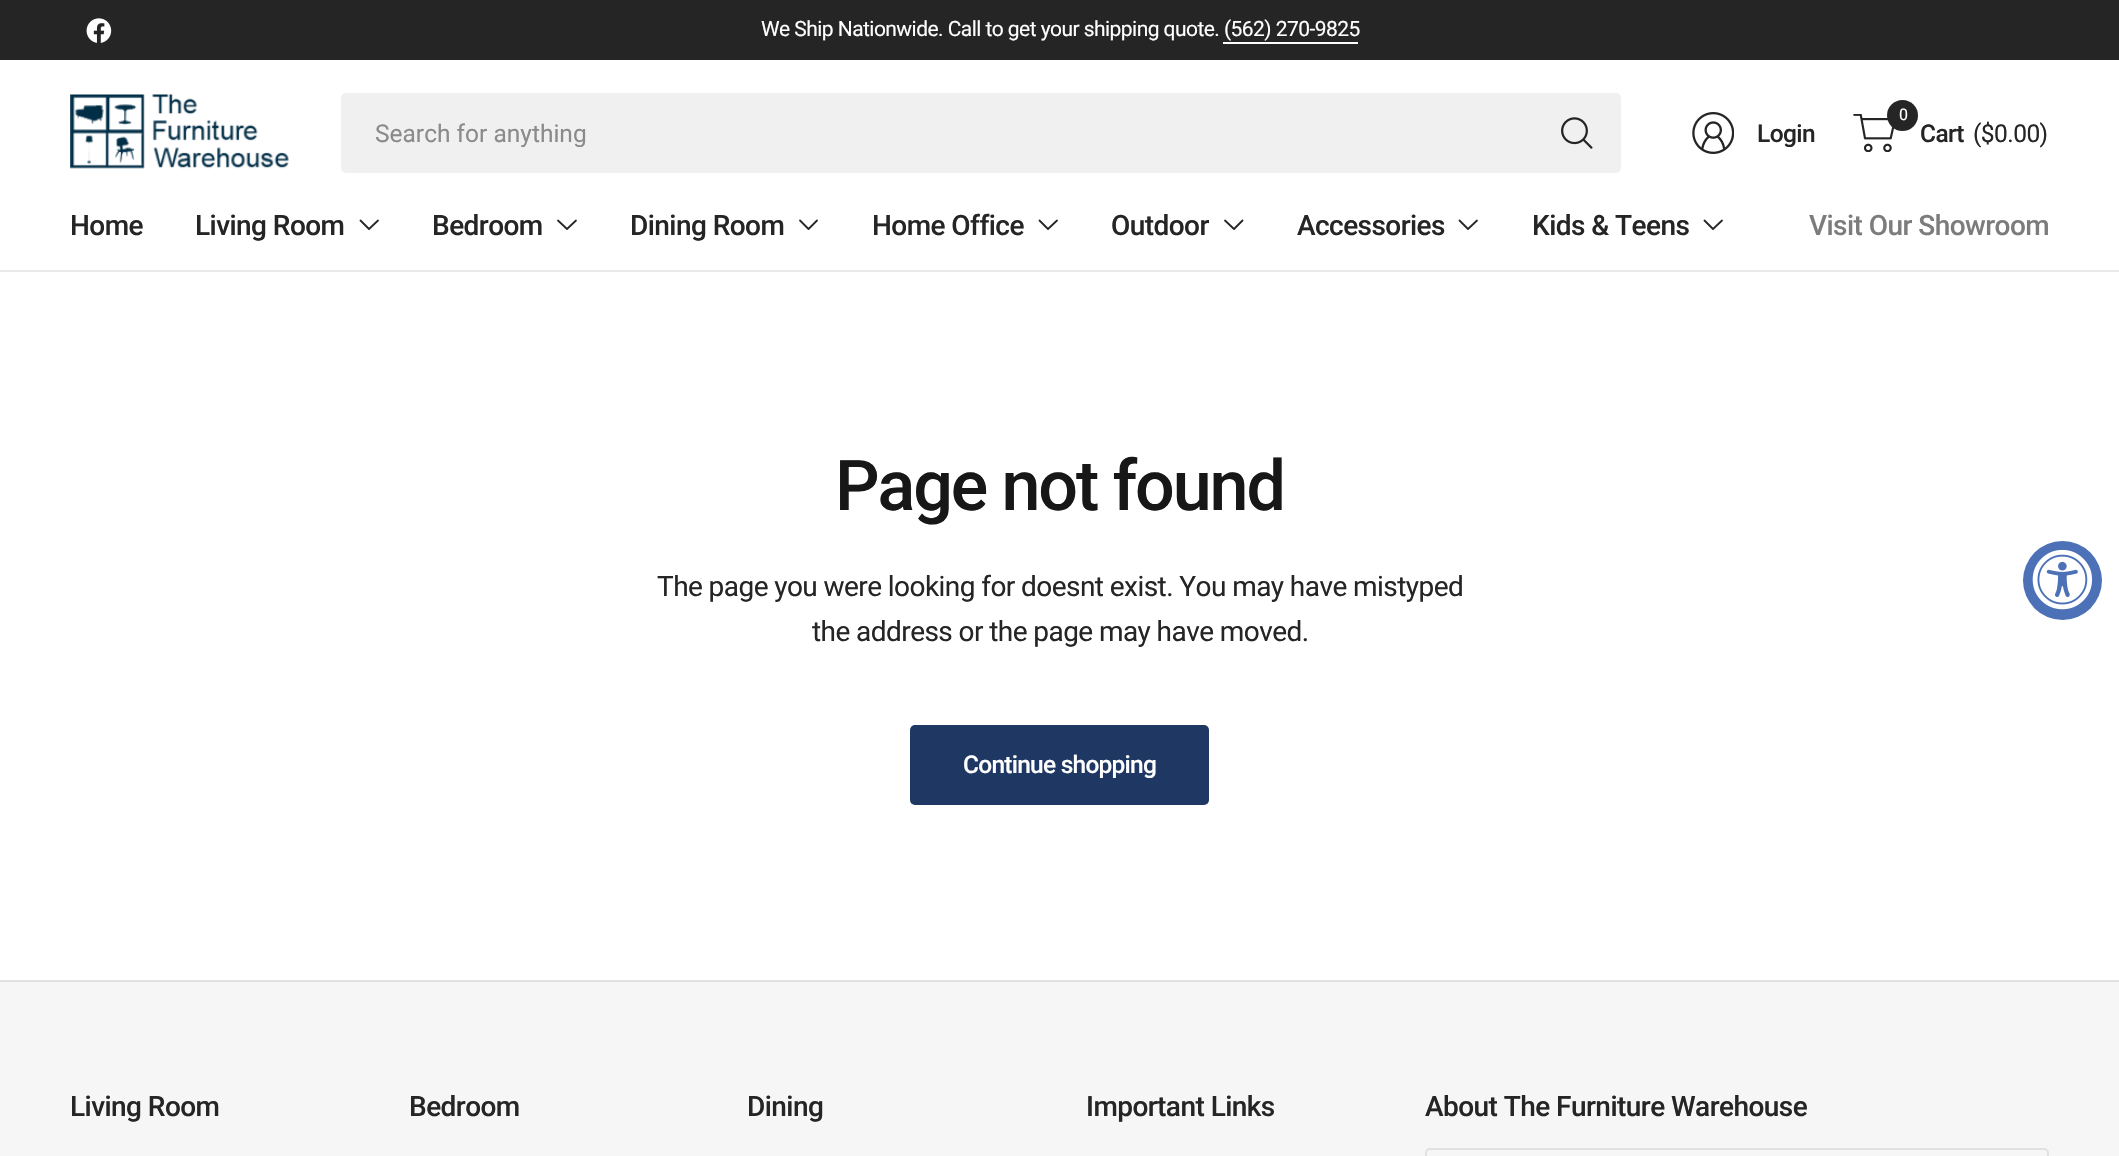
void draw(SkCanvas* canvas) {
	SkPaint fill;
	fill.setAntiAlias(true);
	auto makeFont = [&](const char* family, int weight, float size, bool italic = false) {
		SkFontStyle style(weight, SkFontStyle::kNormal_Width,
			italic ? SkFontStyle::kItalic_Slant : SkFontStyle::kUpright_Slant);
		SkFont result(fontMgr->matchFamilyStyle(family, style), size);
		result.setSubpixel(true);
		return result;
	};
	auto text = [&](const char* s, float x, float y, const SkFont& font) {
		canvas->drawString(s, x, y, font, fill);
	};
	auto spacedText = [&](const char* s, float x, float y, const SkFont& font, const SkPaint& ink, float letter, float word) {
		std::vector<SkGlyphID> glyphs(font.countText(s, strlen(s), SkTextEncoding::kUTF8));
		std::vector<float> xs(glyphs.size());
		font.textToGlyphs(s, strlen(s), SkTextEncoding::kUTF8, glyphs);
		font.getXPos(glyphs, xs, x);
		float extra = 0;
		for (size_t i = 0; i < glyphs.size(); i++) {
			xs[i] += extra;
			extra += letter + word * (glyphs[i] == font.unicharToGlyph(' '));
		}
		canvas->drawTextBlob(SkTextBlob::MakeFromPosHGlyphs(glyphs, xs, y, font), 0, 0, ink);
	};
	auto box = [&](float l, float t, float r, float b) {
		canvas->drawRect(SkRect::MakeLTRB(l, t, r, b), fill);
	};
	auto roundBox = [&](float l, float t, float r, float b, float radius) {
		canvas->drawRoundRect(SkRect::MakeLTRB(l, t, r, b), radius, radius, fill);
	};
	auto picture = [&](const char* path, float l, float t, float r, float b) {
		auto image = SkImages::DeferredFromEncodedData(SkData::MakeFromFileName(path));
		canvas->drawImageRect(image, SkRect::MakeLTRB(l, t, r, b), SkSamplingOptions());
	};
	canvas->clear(0xFFFFFFFF);
	fill.setColor(0xFF252525);
	box(0, 0, 2119, 60);
	picture("image0.png", 86, 18, 112, 43);
	fill.setColor(0xFFFFFFFF);
	box(1223, 42, 1358, 44);
	picture("image1.png", 70, 94, 289, 169);
	fill.setColor(0xFFF0F0F0);
	roundBox(341, 93, 1621, 173, 5);
	picture("image2.png", 1561, 117, 1593, 149);
	picture("image3.png", 1692, 112, 1734, 154);
	picture("image4.png", 1853, 114, 1895, 152);
	fill.setColor(0xFF252525);
	canvas->drawCircle(1902.5f, 115.5f, 15.5f, fill);
	fill.setStyle(SkPaint::kStroke_Style);
	fill.setStrokeWidth(1.8f);
	fill.setStrokeCap(SkPaint::kRound_Cap);
	fill.setStrokeJoin(SkPaint::kRound_Join);
	canvas->drawPath(SkPathBuilder().moveTo(378, 220.5f).lineTo(369, 229).lineTo(360.5f, 220.5f).detach(), fill);
	canvas->drawPath(SkPathBuilder().moveTo(576, 220.5f).lineTo(567, 229).lineTo(558, 220.5f).detach(), fill);
	canvas->drawPath(SkPathBuilder().moveTo(817, 220.5f).lineTo(808.5f, 229).lineTo(800, 220.5f).detach(), fill);
	canvas->drawPath(SkPathBuilder().moveTo(1057, 220.5f).lineTo(1048, 229).lineTo(1039.5f, 220.5f).detach(), fill);
	canvas->drawPath(SkPathBuilder().moveTo(1242.5f, 220.5f).lineTo(1234, 229).lineTo(1225, 220.5f).detach(), fill);
	canvas->drawPath(SkPathBuilder().moveTo(1477, 220.5f).lineTo(1468, 229).lineTo(1459.5f, 220.5f).detach(), fill);
	canvas->drawPath(SkPathBuilder().moveTo(1722, 220.5f).lineTo(1713, 229).lineTo(1704.5f, 220.5f).detach(), fill);
	fill.setStyle(SkPaint::kFill_Style);
	fill.setColor(0xFFE9E9E9);
	box(0, 270, 2119, 272);
	fill.setColor(0xFF1F3763);
	roundBox(910, 725, 1209, 805, 5);
	fill.setColor(0xFFE1E1E1);
	box(0, 980, 2119, 982);
	fill.setColor(0xFFF6F6F6);
	box(0, 982, 2119, 1156);
	fill.setStyle(SkPaint::kStroke_Style);
	fill.setStrokeWidth(2);
	fill.setStrokeCap(SkPaint::kButt_Cap);
	fill.setStrokeJoin(SkPaint::kMiter_Join);
	fill.setColor(0xFFE1E1E1);
	canvas->drawRoundRect(SkRect::MakeLTRB(1426, 1149, 2048, 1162), 4, 4, fill);
	fill.setStyle(SkPaint::kFill_Style);
	fill.setColor(0xFF4C71B6);
	canvas->drawCircle(2062.5f, 580.5f, 39.5f, fill);
	picture("image5.png", 2032, 549, 2093, 610);
	auto font1 = makeFont("Roboto", 400, 21);
	fill.setColor(0xFFFFFFFF);
	spacedText("We Ship Nationwide. Call to get your shipping quote. (562) 270-9825", 761, 36, font1, fill, -0.55f, 0);
	canvas->save();
	canvas->clipRect(SkRect::MakeLTRB(375, 119, 1507, 147));
	auto font2 = makeFont("Roboto", 400, 24.5f);
	fill.setColor(0xFF8B8B8B);
	text("Search for anything", 375, 142, font2);
	canvas->restore();
	auto font3 = makeFont("Roboto", 500, 24.5f);
	fill.setColor(0xFF252525);
	spacedText("Login", 1757, 142, font3, fill, -0.55f, 0);
	auto font4 = makeFont("Roboto", 400, 16);
	fill.setColor(0xFFFFFFFF);
	spacedText("0", 1899, 120, font4, fill, -0.55f, 0);
	fill.setColor(0xFF252525);
	spacedText("Cart", 1920, 142, font3, fill, -0.55f, 0);
	spacedText("($0.00)", 1973, 142, font2, fill, -0.55f, 0);
	auto font5 = makeFont("Roboto", 500, 28);
	spacedText("Home", 70, 235, font5, fill, -0.55f, 0);
	spacedText("Living Room", 195, 235, font5, fill, -0.55f, 0);
	spacedText("Bedroom", 432, 235, font5, fill, -0.55f, 0);
	spacedText("Dining Room", 630, 235, font5, fill, -0.55f, 0);
	spacedText("Home Office", 872, 235, font5, fill, -0.55f, 0);
	spacedText("Outdoor", 1111, 235, font5, fill, -0.55f, 0);
	spacedText("Accessories", 1297, 235, font5, fill, -0.55f, 0);
	spacedText("Kids & Teens", 1532, 235, font5, fill, -0.55f, 0);
	fill.setColor(0xFF7C7C7C);
	spacedText("Visit Our Showroom", 1809, 235, font5, fill, -0.55f, 0);
	auto font6 = makeFont("Roboto", 500, 70);
	fill.setColor(0xFF171717);
	spacedText("Page not found", 835, 510, font6, fill, -2.1f, 0);
	auto font7 = makeFont("Roboto", 400, 28);
	fill.setColor(0xFF252525);
	spacedText("The page you were looking for doesnt exist. You may have mistyped", 657, 596, font7, fill, -0.55f, -0.1f);
	spacedText("the address or the page may have moved.", 812, 641, font7, fill, -0.55f, -0.1f);
	fill.setColor(0xFFFFFFFF);
	spacedText("Continue shopping", 963, 773, font3, fill, -0.75f, 0);
	fill.setColor(0xFF252525);
	spacedText("Living Room", 70, 1116, font5, fill, -0.55f, 0);
	spacedText("Bedroom", 409, 1116, font5, fill, -0.55f, 0);
	spacedText("Dining", 747, 1116, font5, fill, -0.55f, 0);
	spacedText("Important Links", 1086, 1116, font5, fill, -0.55f, 0);
	spacedText("About The Furniture Warehouse", 1425, 1116, font5, fill, -0.55f, 0);
}
